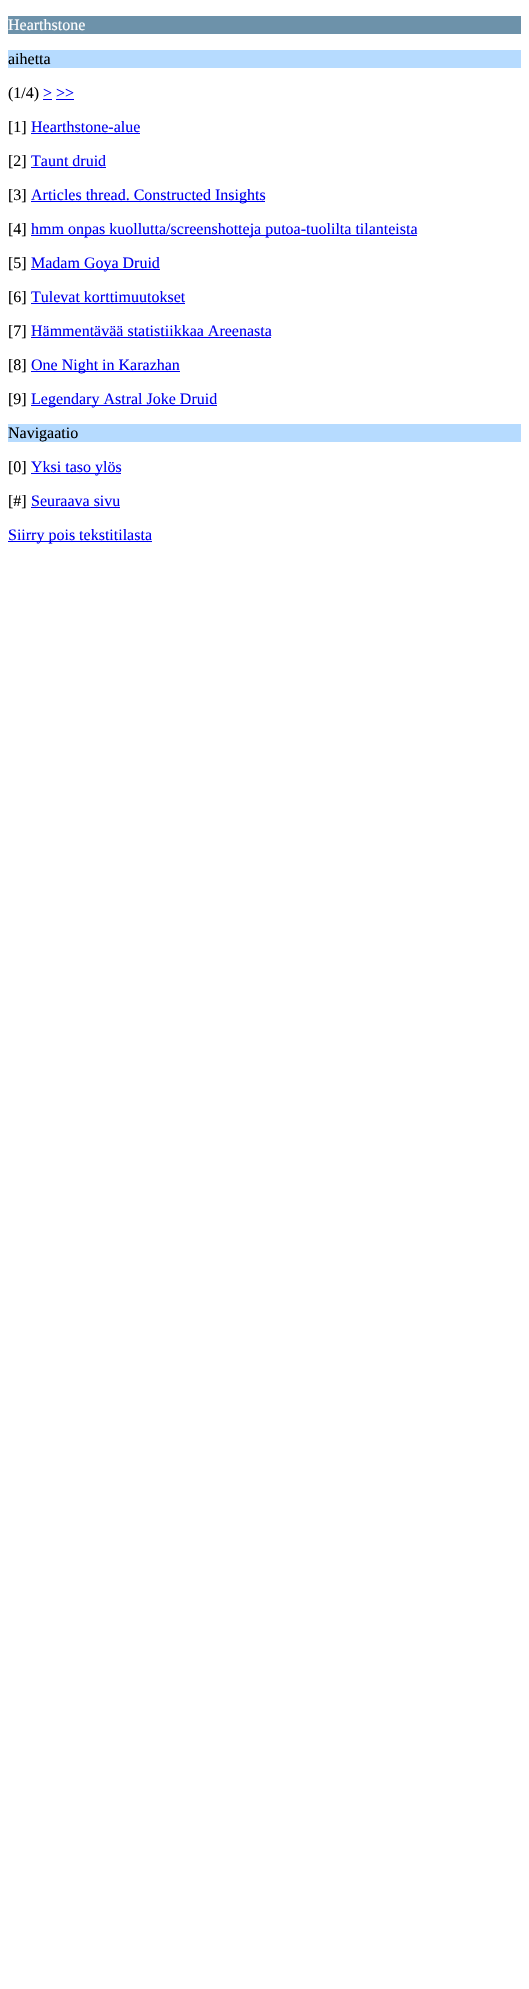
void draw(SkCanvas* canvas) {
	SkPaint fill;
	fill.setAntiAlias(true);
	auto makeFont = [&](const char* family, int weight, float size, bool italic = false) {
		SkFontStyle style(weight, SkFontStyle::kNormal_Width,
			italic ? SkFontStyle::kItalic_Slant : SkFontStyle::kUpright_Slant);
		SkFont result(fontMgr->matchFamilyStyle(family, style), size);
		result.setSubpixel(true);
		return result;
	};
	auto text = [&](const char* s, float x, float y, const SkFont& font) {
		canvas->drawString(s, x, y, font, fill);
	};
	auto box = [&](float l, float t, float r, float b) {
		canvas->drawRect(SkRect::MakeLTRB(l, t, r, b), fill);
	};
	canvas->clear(0xFFFFFFFF);
	fill.setColor(0xFF6D92AA);
	box(8, 16, 521, 34);
	fill.setColor(0xFFB6DBFF);
	box(8, 50, 521, 68);
	fill.setColor(0xFF0000EE);
	box(43, 99, 52, 100);
	box(56, 99, 74, 100);
	box(31, 133, 140, 134);
	box(31, 167, 106, 168);
	box(31, 201, 265, 202);
	box(31, 235, 417, 236);
	box(31, 269, 160, 270);
	box(31, 303, 185, 304);
	box(31, 337, 271, 338);
	box(31, 371, 180, 372);
	box(31, 405, 217, 406);
	fill.setColor(0xFFB6DBFF);
	box(8, 424, 521, 442);
	fill.setColor(0xFF0000EE);
	box(31, 473, 121, 474);
	box(31, 507, 120, 508);
	box(8, 541, 152, 542);
	auto font1 = makeFont("Liberation Serif", 400, 16);
	fill.setColor(0xFFFFFFFF);
	text("Hearthstone", 8, 30, font1);
	fill.setColor(0xFF000000);
	text("aihetta", 8, 64, font1);
	text("(1/4)", 8, 98, font1);
	fill.setColor(0xFF0000EE);
	text("> >>", 43, 98, font1);
	fill.setColor(0xFF000000);
	text("[1]", 8, 132, font1);
	fill.setColor(0xFF0000EE);
	text("Hearthstone-alue", 31, 132, font1);
	fill.setColor(0xFF000000);
	text("[2]", 8, 166, font1);
	fill.setColor(0xFF0000EE);
	text("Taunt druid", 31, 166, font1);
	fill.setColor(0xFF000000);
	text("[3]", 8, 200, font1);
	fill.setColor(0xFF0000EE);
	text("Articles thread. Constructed Insights", 31, 200, font1);
	fill.setColor(0xFF000000);
	text("[4]", 8, 234, font1);
	fill.setColor(0xFF0000EE);
	text("hmm onpas kuollutta/screenshotteja putoa-tuolilta tilanteista", 31, 234, font1);
	fill.setColor(0xFF000000);
	text("[5]", 8, 268, font1);
	fill.setColor(0xFF0000EE);
	text("Madam Goya Druid", 31, 268, font1);
	fill.setColor(0xFF000000);
	text("[6]", 8, 302, font1);
	fill.setColor(0xFF0000EE);
	text("Tulevat korttimuutokset", 31, 302, font1);
	fill.setColor(0xFF000000);
	text("[7]", 8, 336, font1);
	fill.setColor(0xFF0000EE);
	text("Hämmentävää statistiikkaa Areenasta", 31, 336, font1);
	fill.setColor(0xFF000000);
	text("[8]", 8, 370, font1);
	fill.setColor(0xFF0000EE);
	text("One Night in Karazhan", 31, 370, font1);
	fill.setColor(0xFF000000);
	text("[9]", 8, 404, font1);
	fill.setColor(0xFF0000EE);
	text("Legendary Astral Joke Druid", 31, 404, font1);
	fill.setColor(0xFF000000);
	text("Navigaatio", 8, 438, font1);
	text("[0]", 8, 472, font1);
	fill.setColor(0xFF0000EE);
	text("Yksi taso ylös", 31, 472, font1);
	fill.setColor(0xFF000000);
	text("[#]", 8, 506, font1);
	fill.setColor(0xFF0000EE);
	text("Seuraava sivu", 31, 506, font1);
	text("Siirry pois tekstitilasta", 8, 540, font1);
}
